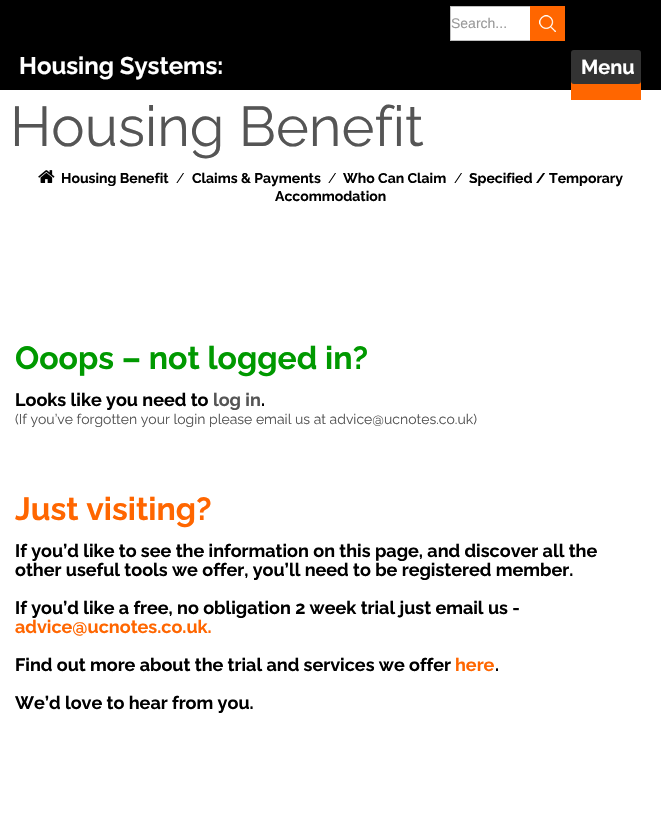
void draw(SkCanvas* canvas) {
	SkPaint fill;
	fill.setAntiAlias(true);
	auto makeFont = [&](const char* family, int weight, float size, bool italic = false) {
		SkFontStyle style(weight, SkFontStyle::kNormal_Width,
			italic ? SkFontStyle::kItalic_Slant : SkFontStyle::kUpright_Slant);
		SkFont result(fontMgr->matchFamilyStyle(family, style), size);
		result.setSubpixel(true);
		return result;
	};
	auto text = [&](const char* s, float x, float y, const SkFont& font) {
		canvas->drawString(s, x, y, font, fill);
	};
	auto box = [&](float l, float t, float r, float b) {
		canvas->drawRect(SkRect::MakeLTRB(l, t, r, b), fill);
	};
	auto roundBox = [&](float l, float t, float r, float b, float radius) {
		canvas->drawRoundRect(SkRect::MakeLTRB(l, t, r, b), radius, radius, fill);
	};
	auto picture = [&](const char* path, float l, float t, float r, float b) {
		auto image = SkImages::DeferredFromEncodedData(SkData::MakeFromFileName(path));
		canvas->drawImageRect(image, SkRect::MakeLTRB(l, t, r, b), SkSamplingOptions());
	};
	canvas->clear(0xFFFFFFFF);
	fill.setColor(0xFF000000);
	box(0, 0, 661, 90);
	fill.setColor(0xFFFFFFFF);
	box(451, 7, 530, 40);
	fill.setStyle(SkPaint::kStroke_Style);
	fill.setStrokeWidth(1);
	fill.setColor(0xFFC0C0C0);
	canvas->drawRect(SkRect::MakeLTRB(450.5f, 6.5f, 549.5f, 40.5f), fill);
	fill.setStyle(SkPaint::kFill_Style);
	fill.setColor(0xFFFF6600);
	box(530, 6, 565, 41);
	picture("image0.png", 539, 15, 556, 32);
	box(571, 81, 641, 100);
	fill.setColor(0xFF333333);
	roundBox(571, 50, 641, 84, 3);
	picture("image1.png", 38, 170, 55, 183);
	auto font1 = makeFont("Liberation Sans", 400, 14);
	fill.setColor(0xFF999999);
	text("Search...", 451, 28, font1);
	auto font2 = makeFont("Raleway", 700, 24);
	fill.setColor(0xFFFFFFFF);
	text("Housing Systems:", 19, 74, font2);
	auto font3 = makeFont("Raleway", 700, 20);
	text("Menu", 581, 74, font3);
	auto font4 = makeFont("Raleway", 400, 56);
	fill.setColor(0xFF555555);
	text("Housing Benefit", 10, 146, font4);
	auto font5 = makeFont("Raleway", 700, 14);
	fill.setColor(0xFF000000);
	text("Housing Benefit", 61, 183, font5);
	auto font6 = makeFont("Raleway", 400, 14);
	text("/", 176, 183, font6);
	text("Claims & Payments", 192, 183, font5);
	text("/", 328, 183, font6);
	text("Who Can Claim", 343, 183, font5);
	text("/", 454, 183, font6);
	text("Specified / Temporary", 469, 183, font5);
	text("Accommodation", 275, 201, font5);
	auto font7 = makeFont("Raleway", 700, 32);
	fill.setColor(0xFF009900);
	text("Ooops – not logged in?", 15, 369, font7);
	auto font8 = makeFont("Raleway", 700, 18);
	fill.setColor(0xFF000000);
	text("Looks like you need to", 15, 406, font8);
	fill.setColor(0xFF555555);
	text("log in", 213, 406, font8);
	fill.setColor(0xFF000000);
	text(".", 261, 406, font8);
	fill.setColor(0xFF555555);
	text("(If you’ve forgotten your login please email us at advice@ucnotes.co.uk)", 15, 424, font6);
	fill.setColor(0xFFFF6600);
	text("Just visiting?", 15, 520, font7);
	fill.setColor(0xFF000000);
	text("If you’d like to see the information on this page, and discover all the", 15, 557, font8);
	text("other useful tools we offer, you’ll need to be registered member.", 15, 576, font8);
	text("If you’d like a free, no obligation 2 week trial just email us -", 15, 614, font8);
	fill.setColor(0xFFFF6600);
	text("advice@ucnotes.co.uk.", 15, 633, font8);
	fill.setColor(0xFF000000);
	text("Find out more about the trial and services we offer", 15, 671, font8);
	fill.setColor(0xFFFF6600);
	text("here", 455, 671, font8);
	fill.setColor(0xFF000000);
	text(".", 495, 671, font8);
	text("We’d love to hear from you.", 15, 709, font8);
}
